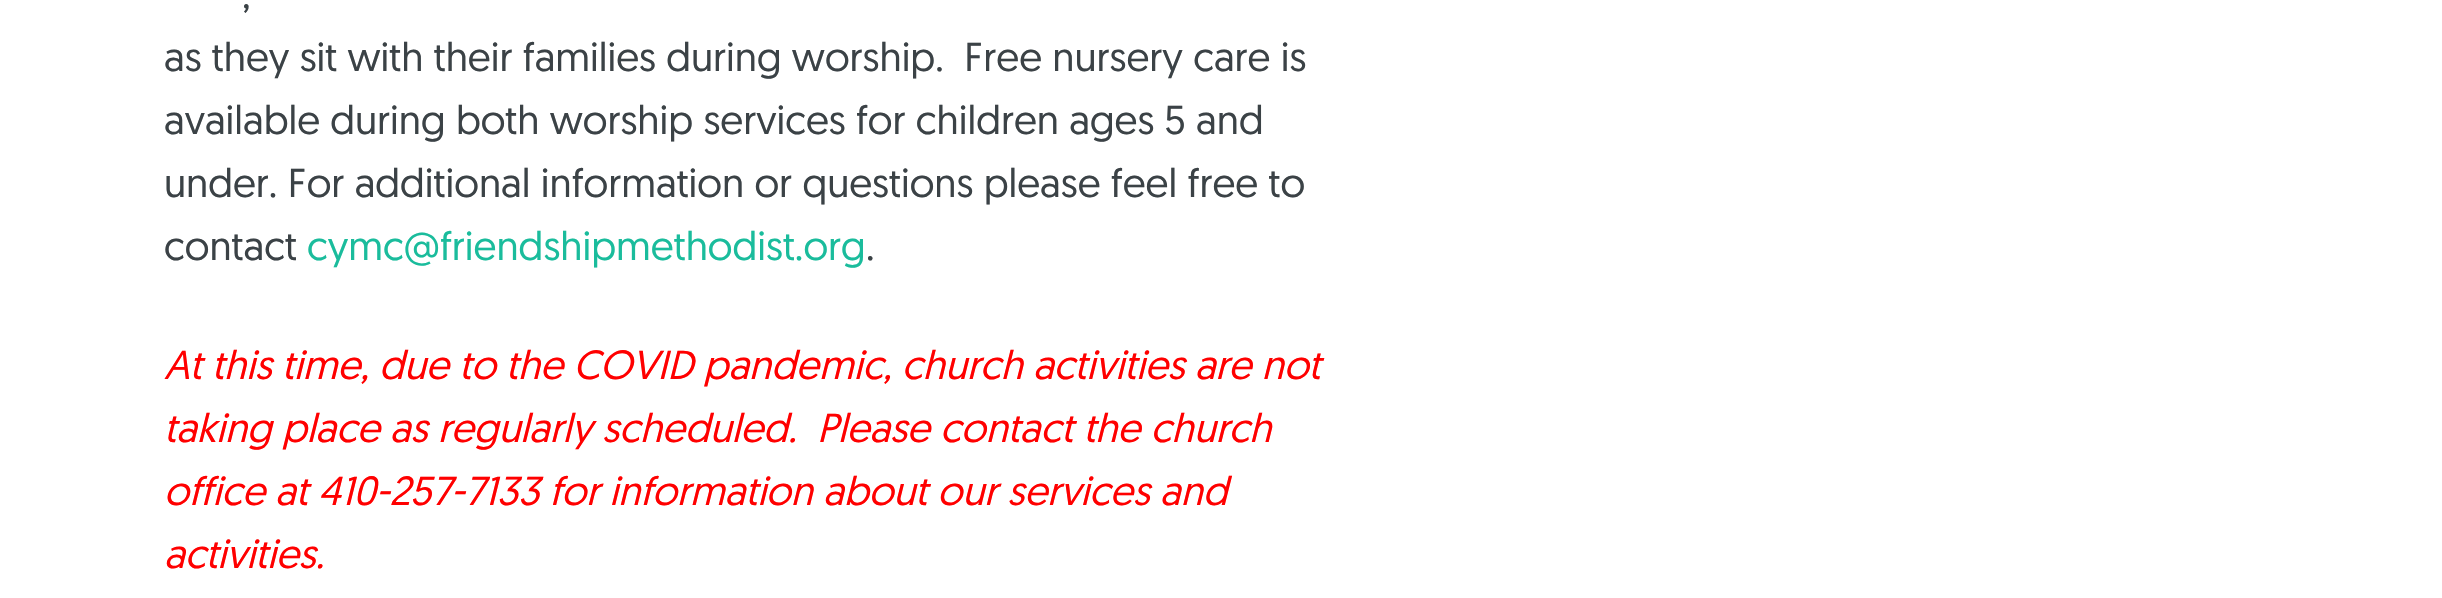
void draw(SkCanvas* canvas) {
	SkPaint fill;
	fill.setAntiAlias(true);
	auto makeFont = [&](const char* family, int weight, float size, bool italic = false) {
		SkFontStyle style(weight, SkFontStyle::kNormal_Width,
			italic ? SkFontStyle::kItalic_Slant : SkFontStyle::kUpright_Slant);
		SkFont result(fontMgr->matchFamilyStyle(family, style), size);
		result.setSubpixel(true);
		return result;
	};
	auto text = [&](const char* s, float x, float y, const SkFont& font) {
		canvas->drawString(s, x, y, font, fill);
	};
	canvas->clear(0xFFFFFFFF);
	auto font1 = makeFont("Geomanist", 400, 40.5f);
	fill.setColor(0xFF3B4246);
	text(",", 242, 8, font1);
	text("as they sit with their families during worship.  Free nursery care is", 164, 71, font1);
	text("available during both worship services for children ages 5 and", 164, 134, font1);
	text("under. For additional information or questions please feel free to", 164, 197, font1);
	text("contact", 164, 260, font1);
	fill.setColor(0xFF1ABC9C);
	text("cymc@friendshipmethodist.org", 307, 260, font1);
	fill.setColor(0xFF3B4246);
	text(".", 866, 260, font1);
	auto font2 = makeFont("Geomanist", 400, 40.5f, true);
	fill.setColor(0xFFFF0000);
	text("At this time, due to the COVID pandemic, church activities are not", 164, 379, font2);
	text("taking place as regularly scheduled.  Please contact the church", 164, 442, font2);
	text("office at 410-257-7133 for information about our services and", 164, 505, font2);
	text("activities.", 164, 568, font2);
}
